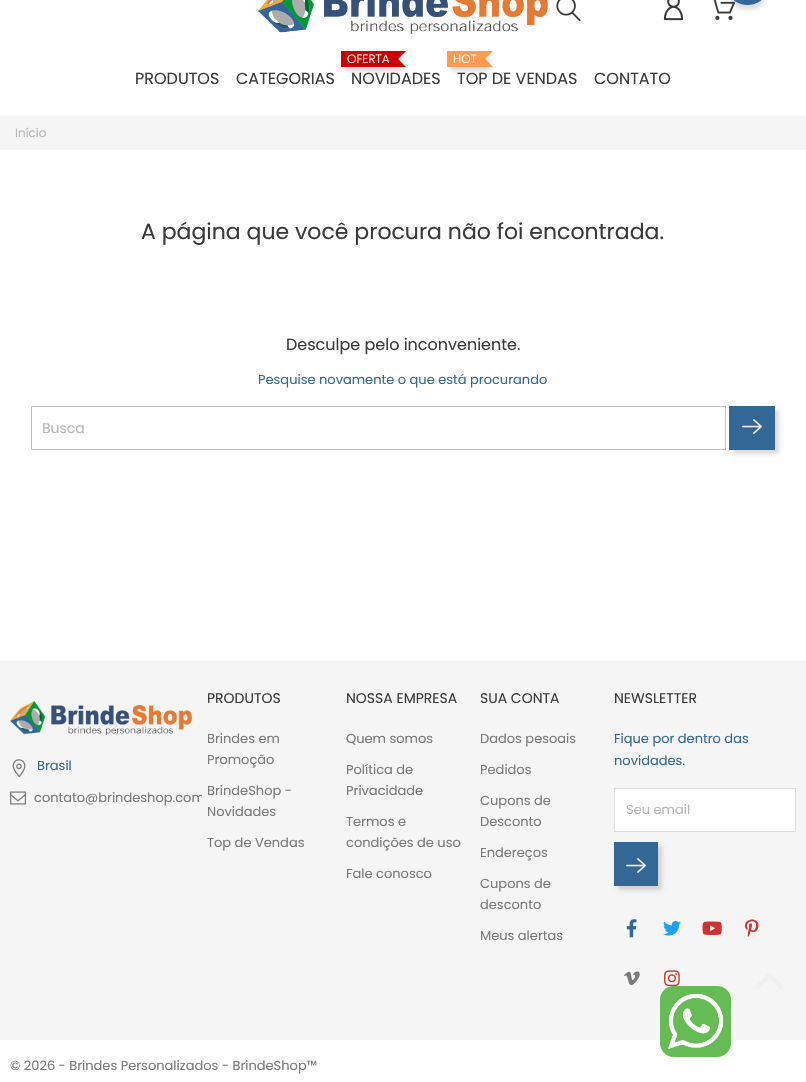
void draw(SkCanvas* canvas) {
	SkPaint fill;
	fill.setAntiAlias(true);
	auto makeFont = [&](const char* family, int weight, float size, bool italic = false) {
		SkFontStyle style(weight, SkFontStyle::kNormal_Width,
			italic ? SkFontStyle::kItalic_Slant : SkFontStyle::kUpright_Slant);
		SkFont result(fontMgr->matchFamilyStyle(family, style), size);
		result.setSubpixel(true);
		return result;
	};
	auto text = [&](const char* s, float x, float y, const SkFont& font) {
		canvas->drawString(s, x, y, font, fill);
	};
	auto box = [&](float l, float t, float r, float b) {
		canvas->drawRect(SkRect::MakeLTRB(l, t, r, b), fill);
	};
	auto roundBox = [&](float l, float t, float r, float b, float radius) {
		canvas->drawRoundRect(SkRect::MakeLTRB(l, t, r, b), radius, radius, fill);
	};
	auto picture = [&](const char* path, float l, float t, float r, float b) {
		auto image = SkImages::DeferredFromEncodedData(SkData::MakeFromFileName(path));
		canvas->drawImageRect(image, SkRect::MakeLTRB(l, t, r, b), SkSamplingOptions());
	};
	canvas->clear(0xFFFFFFFF);
	picture("image0.png", 258, 0, 548, 34);
	picture("image1.png", 556, 0, 581, 22);
	picture("image2.png", 663, 0, 684, 21);
	picture("image3.png", 713, 0, 735, 20);
	fill.setColor(0x24000000);
	fill.setMaskFilter(SkMaskFilter::MakeBlur(kNormal_SkBlurStyle, 2));
	canvas->drawRoundRect(SkRect::MakeLTRB(730, -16, 765, 9), 12.5f, 12.5f, fill);
	fill.setMaskFilter(nullptr);
	fill.setColor(0xFF336796);
	canvas->drawOval(SkRect::MakeLTRB(730, -20, 765, 5), fill);
	fill.setColor(0x24000000);
	fill.setMaskFilter(SkMaskFilter::MakeBlur(kNormal_SkBlurStyle, 2));
	canvas->drawRect(SkRect::MakeLTRB(345, 55, 402, 71), fill);
	fill.setMaskFilter(nullptr);
	fill.setColor(0xFFCC0000);
	box(341, 51, 398, 67);
	canvas->drawPath(SkPathBuilder().moveTo(390, 51).lineTo(406, 51).lineTo(398, 59).close().moveTo(406, 67).lineTo(390, 67).lineTo(398, 59).close().detach(), fill);
	fill.setColor(0x24000000);
	fill.setMaskFilter(SkMaskFilter::MakeBlur(kNormal_SkBlurStyle, 2));
	canvas->drawRect(SkRect::MakeLTRB(451, 55, 489, 71), fill);
	fill.setMaskFilter(nullptr);
	fill.setColor(0xFFFF9A52);
	box(447, 51, 485, 67);
	canvas->drawPath(SkPathBuilder().moveTo(477, 51).lineTo(493, 51).lineTo(485, 59).close().moveTo(493, 67).lineTo(477, 67).lineTo(485, 59).close().detach(), fill);
	fill.setColor(0xFFF5F5F5);
	box(0, 115, 806, 150);
	fill.setStyle(SkPaint::kStroke_Style);
	fill.setStrokeWidth(1);
	fill.setColor(0xFFBFBFBF);
	canvas->drawRect(SkRect::MakeLTRB(31.5f, 406.5f, 725.5f, 449.5f), fill);
	fill.setStyle(SkPaint::kFill_Style);
	fill.setColor(0x24000000);
	fill.setMaskFilter(SkMaskFilter::MakeBlur(kNormal_SkBlurStyle, 2));
	canvas->drawRect(SkRect::MakeLTRB(733, 410, 779, 454), fill);
	fill.setMaskFilter(nullptr);
	fill.setColor(0xFF336796);
	box(729, 406, 775, 450);
	picture("image4.png", 742, 419, 762, 434);
	fill.setColor(0xFFF5F5F5);
	box(0, 661, 806, 1040);
	picture("image5.png", 10, 701, 192, 735);
	picture("image6.png", 12, 759, 26, 778);
	picture("image7.png", 10, 791, 26, 805);
	fill.setColor(0xFFFFFFFF);
	canvas->drawRect(SkRect::MakeLTRB(614.5f, 788.5f, 795.5f, 831.5f), fill);
	fill.setStyle(SkPaint::kStroke_Style);
	fill.setColor(0xFFDEDEDE);
	canvas->drawRect(SkRect::MakeLTRB(614.5f, 788.5f, 795.5f, 831.5f), fill);
	fill.setStyle(SkPaint::kFill_Style);
	fill.setColor(0x24000000);
	fill.setMaskFilter(SkMaskFilter::MakeBlur(kNormal_SkBlurStyle, 2));
	canvas->drawRect(SkRect::MakeLTRB(618, 846, 662, 890), fill);
	fill.setMaskFilter(nullptr);
	fill.setColor(0xFF336796);
	box(614, 842, 658, 886);
	picture("image4.png", 626, 858, 646, 873);
	picture("image8.png", 626, 919, 637, 938);
	picture("image9.png", 663, 920, 681, 936);
	picture("image10.png", 702, 921, 722, 935);
	picture("image11.png", 745, 919, 759, 937);
	picture("image12.png", 624, 971, 640, 986);
	picture("image13.png", 664, 970, 680, 987);
	fill.setColor(0xFF65BC54);
	roundBox(660, 986, 731, 1057, 14);
	picture("image14.png", 668, 994, 724, 1050);
	fill.setColor(0xFFF0F0F0);
	canvas->drawPath(SkPathBuilder().moveTo(769.5f, 972).lineTo(784, 986.5f).lineTo(780.5f, 989.5f).lineTo(769.5f, 978.5f).lineTo(758.5f, 989.5f).lineTo(755, 986.5f).close().detach(), fill);
	auto font1 = makeFont("Poppins", 400, 16);
	fill.setColor(0xFF3A3A3A);
	text("PRODUTOS", 135, 84, font1);
	text("CATEGORIAS", 236, 84, font1);
	auto font2 = makeFont("Poppins", 300, 12);
	fill.setColor(0xFFFFFFFF);
	text("OFERTA", 347, 63, font2);
	fill.setColor(0xFF3A3A3A);
	text("NOVIDADES", 351, 84, font1);
	fill.setColor(0xFFFFFFFF);
	text("HOT", 453, 63, font2);
	fill.setColor(0xFF3A3A3A);
	text("TOP DE VENDAS", 457, 84, font1);
	text("CONTATO", 594, 84, font1);
	auto font3 = makeFont("Poppins", 400, 12);
	fill.setColor(0xFFB7B7B7);
	text("Início", 15, 137, font3);
	auto font4 = makeFont("Poppins", 400, 22);
	fill.setColor(0xFF3A3A3A);
	text("A página que você procura não foi encontrada.", 141, 239, font4);
	text("Desculpe pelo inconveniente.", 286, 350, font1);
	auto font5 = makeFont("Poppins", 400, 13);
	fill.setColor(0xFF356897);
	text("Pesquise novamente o que está procurando", 258, 384, font5);
	auto font6 = makeFont("Poppins", 400, 14);
	fill.setColor(0xFFB7B7B7);
	text("Busca", 42, 433, font6);
	fill.setColor(0xFF356897);
	text("Brasil", 37, 770, font5);
	canvas->save();
	canvas->clipRect(SkRect::MakeLTRB(0, 691, 202, 824));
	fill.setColor(0xFF7A7A7A);
	text("contato@brindeshop.com", 34, 802, font5);
	canvas->restore();
	fill.setColor(0xFF3A3A3A);
	text("PRODUTOS", 207, 703, font6);
	fill.setColor(0xFF7A7A7A);
	text("Brindes em", 207, 743, font5);
	text("Promoção", 207, 764, font5);
	text("BrindeShop -", 207, 795, font5);
	text("Novidades", 207, 816, font5);
	text("Top de Vendas", 207, 847, font5);
	fill.setColor(0xFF3A3A3A);
	text("NOSSA EMPRESA", 346, 703, font6);
	fill.setColor(0xFF7A7A7A);
	text("Quem somos", 346, 743, font5);
	text("Política de", 346, 774, font5);
	text("Privacidade", 346, 795, font5);
	text("Termos e", 346, 826, font5);
	text("condições de uso", 346, 847, font5);
	text("Fale conosco", 346, 878, font5);
	fill.setColor(0xFF3A3A3A);
	text("SUA CONTA", 480, 703, font6);
	fill.setColor(0xFF7A7A7A);
	text("Dados pesoais", 480, 743, font5);
	text("Pedidos", 480, 774, font5);
	text("Cupons de", 480, 805, font5);
	text("Desconto", 480, 826, font5);
	text("Endereços", 480, 857, font5);
	text("Cupons de", 480, 888, font5);
	text("desconto", 480, 909, font5);
	text("Meus alertas", 480, 940, font5);
	fill.setColor(0xFF3A3A3A);
	text("NEWSLETTER", 614, 703, font6);
	fill.setColor(0xFF356897);
	text("Fique por dentro das", 614, 743, font5);
	text("novidades.", 614, 765, font5);
	fill.setColor(0xFFB7B7B7);
	text("Seu email", 626, 814, font5);
	fill.setColor(0xFF7A7A7A);
	text("© 2026 - Brindes Personalizados - BrindeShop™", 10, 1070, font5);
}
